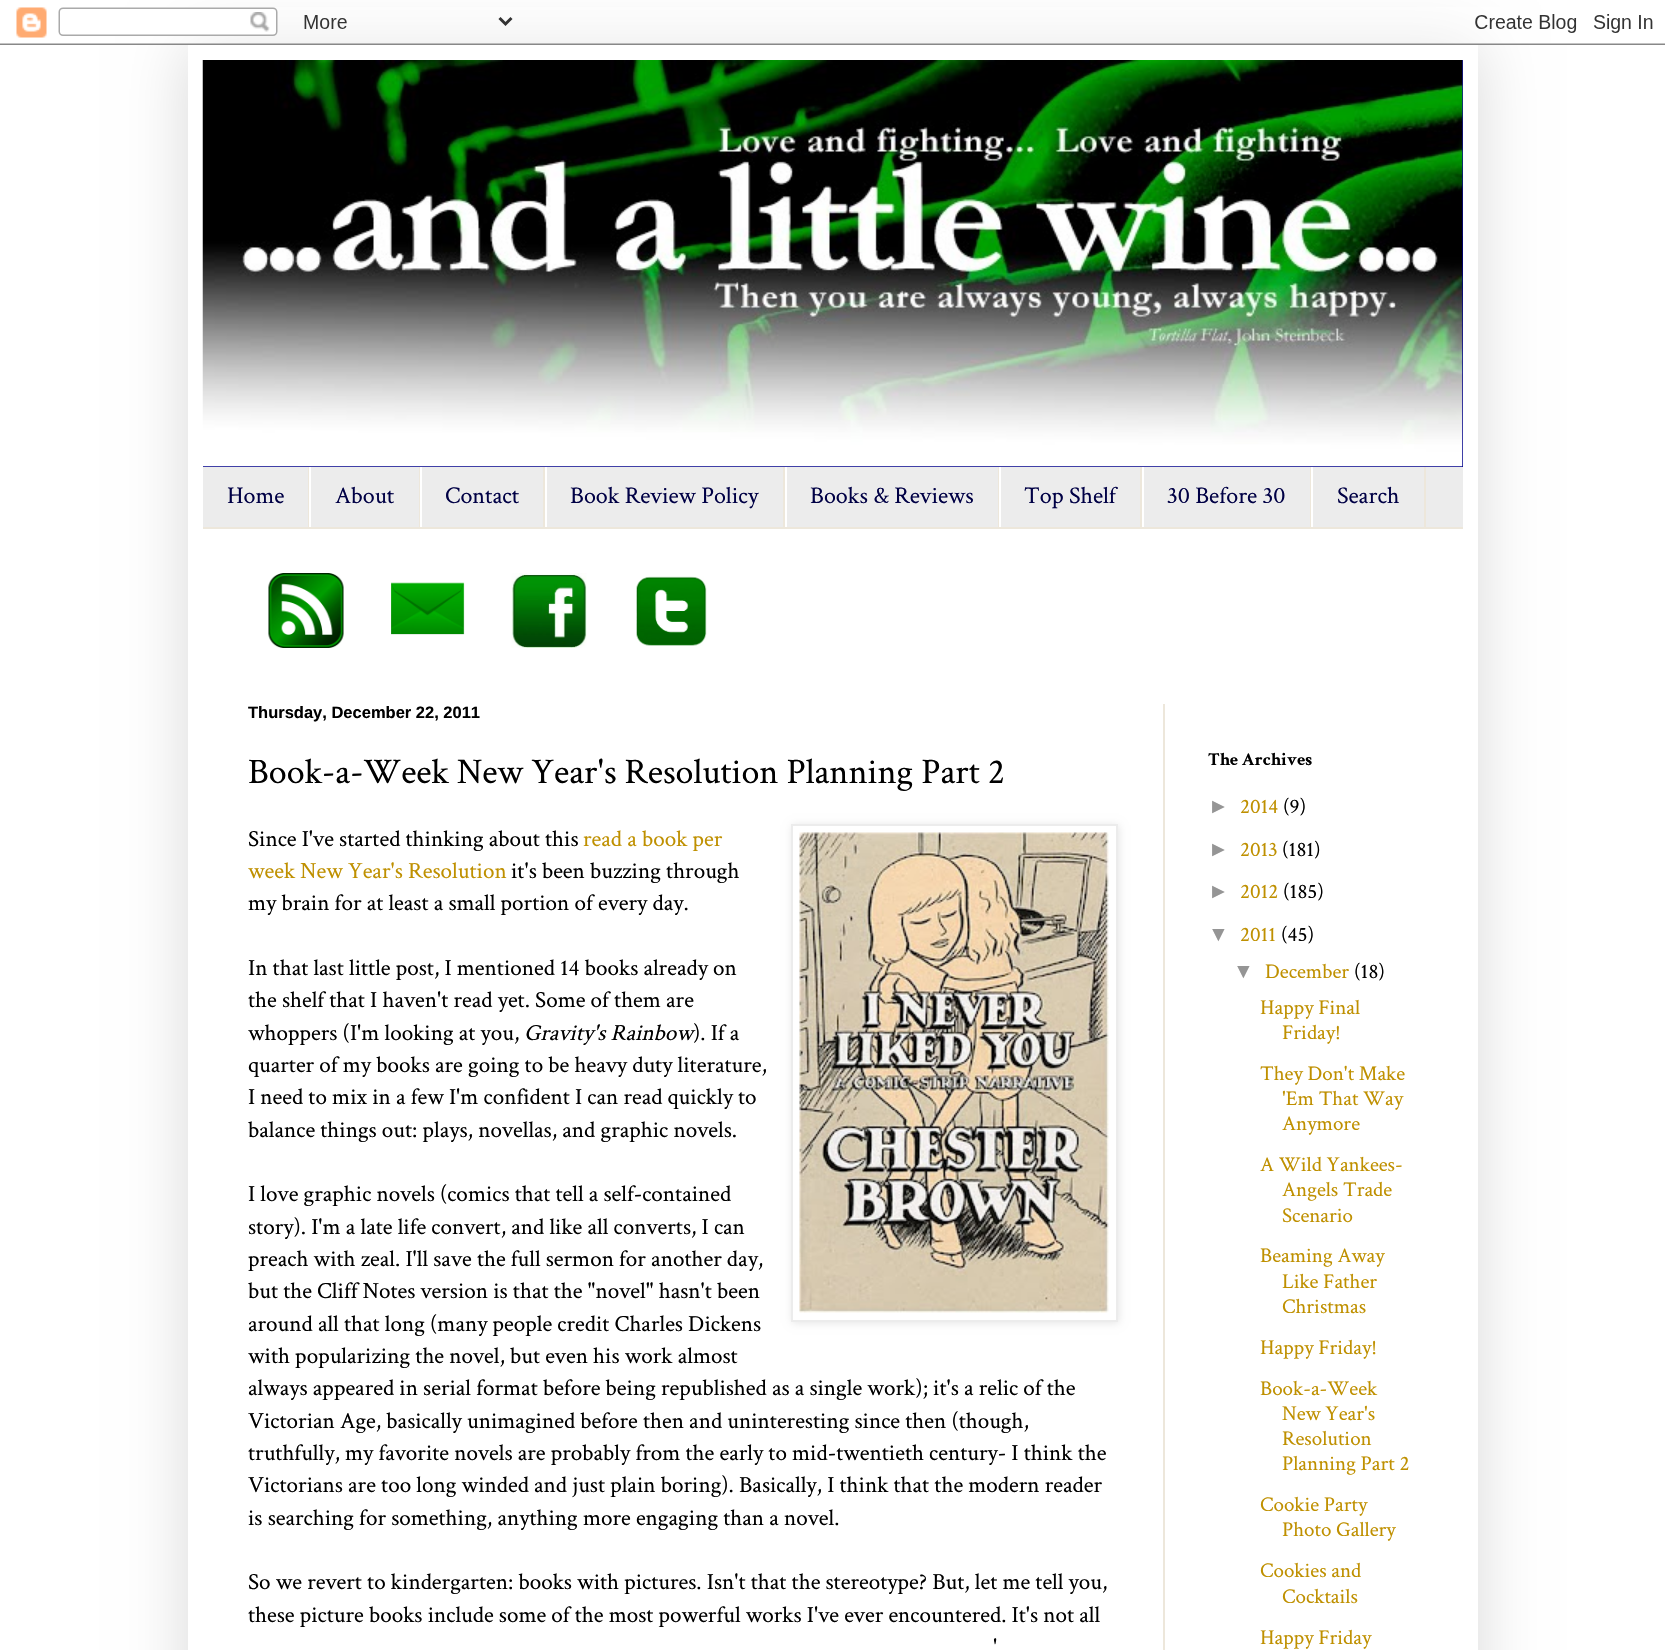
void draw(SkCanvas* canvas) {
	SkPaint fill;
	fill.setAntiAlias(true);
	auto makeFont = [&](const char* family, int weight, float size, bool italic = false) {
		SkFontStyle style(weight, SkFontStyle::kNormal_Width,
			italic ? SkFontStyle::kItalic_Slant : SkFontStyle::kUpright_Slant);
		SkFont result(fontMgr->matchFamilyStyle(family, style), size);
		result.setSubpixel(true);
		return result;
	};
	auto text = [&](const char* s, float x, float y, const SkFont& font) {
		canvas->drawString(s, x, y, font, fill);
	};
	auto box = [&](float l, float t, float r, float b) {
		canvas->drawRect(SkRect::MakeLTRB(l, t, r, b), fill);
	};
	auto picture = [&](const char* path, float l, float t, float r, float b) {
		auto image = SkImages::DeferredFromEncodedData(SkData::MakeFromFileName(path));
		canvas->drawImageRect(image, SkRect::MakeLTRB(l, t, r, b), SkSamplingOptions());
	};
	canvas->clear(0xFFFFFFFF);
	fill.setColor(0x26000000);
	fill.setMaskFilter(SkMaskFilter::MakeBlur(kNormal_SkBlurStyle, 30));
	canvas->drawRect(SkRect::MakeLTRB(188, 45, 1478, 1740), fill);
	fill.setMaskFilter(nullptr);
	picture("image0.png", 0, 7, 1665, 45);
	fill.setColor(0xFFFFFFFF);
	box(188, 45, 1478, 1650);
	fill.setColor(0xFF00008A);
	box(203, 60, 1463, 467);
	picture("image1.png", 1462, 60, 1463, 236);
	picture("image2.png", 202, 60, 1463, 467);
	fill.setColor(0xFFECECEC);
	box(203, 467, 1463, 527);
	fill.setColor(0xFFEDE7DB);
	box(203, 527, 1463, 529);
	box(308, 467, 309, 527);
	box(419, 467, 420, 527);
	fill.setColor(0xFFFFFFFF);
	box(309, 467, 311, 527);
	fill.setColor(0xFFEDE7DB);
	box(543, 467, 545, 527);
	fill.setColor(0xFFFFFFFF);
	box(420, 467, 422, 527);
	fill.setColor(0xFFEDE7DB);
	box(783, 467, 785, 527);
	fill.setColor(0xFFFFFFFF);
	box(545, 467, 547, 527);
	fill.setColor(0xFFEDE7DB);
	box(998, 467, 999, 527);
	fill.setColor(0xFFFFFFFF);
	box(785, 467, 787, 527);
	fill.setColor(0xFFEDE7DB);
	box(1140, 467, 1142, 527);
	fill.setColor(0xFFFFFFFF);
	box(999, 467, 1001, 527);
	fill.setColor(0xFFEDE7DB);
	box(1310, 467, 1311, 527);
	fill.setColor(0xFFFFFFFF);
	box(1142, 467, 1144, 527);
	fill.setColor(0xFFEDE7DB);
	box(1424, 467, 1426, 527);
	fill.setColor(0xFFFFFFFF);
	box(1311, 467, 1313, 527);
	picture("image3.png", 268, 573, 344, 648);
	picture("image4.png", 391, 582, 465, 635);
	picture("image5.png", 511, 573, 587, 648);
	picture("image6.png", 636, 576, 707, 646);
	fill.setColor(0xFFEDE7DB);
	box(1163, 704, 1165, 1650);
	fill.setColor(0x1A000000);
	fill.setMaskFilter(SkMaskFilter::MakeBlur(kNormal_SkBlurStyle, 4));
	canvas->drawRect(SkRect::MakeLTRB(792, 825, 1119, 1323), fill);
	fill.setMaskFilter(nullptr);
	fill.setColor(0xFFFFFFFF);
	canvas->drawRect(SkRect::MakeLTRB(792, 825, 1117, 1321), fill);
	fill.setStyle(SkPaint::kStroke_Style);
	fill.setStrokeWidth(2);
	fill.setColor(0xFFECECEC);
	canvas->drawRect(SkRect::MakeLTRB(792, 825, 1117, 1321), fill);
	picture("image7.png", 799, 832, 1109, 1313);
	auto font1 = makeFont("Crimson Text", 400, 24);
	fill.setStyle(SkPaint::kFill_Style);
	fill.setColor(0xFF000045);
	text("Home", 227, 503, font1);
	text("About", 335, 503, font1);
	text("Contact", 445, 503, font1);
	text("Book Review Policy", 570, 503, font1);
	text("Books & Reviews", 810, 503, font1);
	text("Top Shelf", 1024, 503, font1);
	text("30 Before 30", 1167, 503, font1);
	text("Search", 1337, 503, font1);
	auto font2 = makeFont("Liberation Sans", 700, 16.5f);
	fill.setColor(0xFF000000);
	text("Thursday, December 22, 2011", 248, 718, font2);
	auto font3 = makeFont("Crimson Text", 400, 36);
	text("Book-a-Week New Year's Resolution Planning Part 2", 248, 783, font3);
	auto font4 = makeFont("Crimson Text", 400, 23.1f);
	text("Since I've started thinking about this", 248, 846, font4);
	fill.setColor(0xFFBF9000);
	text("read a book per", 583, 846, font4);
	text("week New Year's Resolution", 248, 878, font4);
	fill.setColor(0xFF000000);
	text("it's been buzzing through", 511, 878, font4);
	text("my brain for at least a small portion of every day.", 248, 910, font4);
	text("In that last little post, I mentioned 14 books already on", 248, 975, font4);
	text("the shelf that I haven't read yet. Some of them are", 248, 1007, font4);
	text("whoppers (I'm looking at you,", 248, 1040, font4);
	auto font5 = makeFont("Crimson Text", 400, 23.1f, true);
	text("Gravity's Rainbow", 524, 1040, font5);
	text("). If a", 693, 1040, font4);
	text("quarter of my books are going to be heavy duty literature,", 248, 1072, font4);
	text("I need to mix in a few I'm confident I can read quickly to", 248, 1104, font4);
	text("balance things out: plays, novellas, and graphic novels.", 248, 1137, font4);
	text("I love graphic novels (comics that tell a self-contained", 248, 1201, font4);
	text("story). I'm a late life convert, and like all converts, I can", 248, 1234, font4);
	text("preach with zeal. I'll save the full sermon for another day,", 248, 1266, font4);
	text("but the Cliff Notes version is that the \"novel\" hasn't been", 248, 1298, font4);
	text("around all that long (many people credit Charles Dickens", 248, 1331, font4);
	text("with popularizing the novel, but even his work almost", 248, 1363, font4);
	text("always appeared in serial format before being republished as a single work); it's a relic of the", 248, 1395, font4);
	text("Victorian Age, basically unimagined before then and uninteresting since then (though,", 248, 1428, font4);
	text("truthfully, my favorite novels are probably from the early to mid-twentieth century- I think the", 248, 1460, font4);
	text("Victorians are too long winded and just plain boring). Basically, I think that the modern reader", 248, 1492, font4);
	text("is searching for something, anything more engaging than a novel.", 248, 1525, font4);
	text("So we revert to kindergarten: books with pictures. Isn't that the stereotype? But, let me tell you,", 248, 1589, font4);
	text("these picture books include some of the most powerful works I've ever encountered. It's not all", 248, 1622, font4);
	text("'", 993, 1654, font4);
	auto font6 = makeFont("Crimson Text", 700, 18);
	text("The Archives", 1208, 765, font6);
	auto font7 = makeFont("Liberation Sans", 400, 21);
	fill.setColor(0xFF959595);
	text("►", 1208, 813, font7);
	auto font8 = makeFont("Crimson Text", 400, 21);
	fill.setColor(0xFFBF9000);
	text("2014", 1240, 813, font8);
	fill.setColor(0xFF000000);
	text("(9)", 1283, 813, font8);
	fill.setColor(0xFF959595);
	text("►", 1208, 856, font7);
	fill.setColor(0xFFBF9000);
	text("2013", 1240, 856, font8);
	fill.setColor(0xFF000000);
	text("(181)", 1282, 856, font8);
	fill.setColor(0xFF959595);
	text("►", 1208, 898, font7);
	fill.setColor(0xFFBF9000);
	text("2012", 1240, 898, font8);
	fill.setColor(0xFF000000);
	text("(185)", 1283, 898, font8);
	fill.setColor(0xFF959595);
	text("▼", 1208, 941, font7);
	fill.setColor(0xFFBF9000);
	text("2011", 1240, 941, font8);
	fill.setColor(0xFF000000);
	text("(45)", 1281, 941, font8);
	fill.setColor(0xFF959595);
	text("▼", 1233, 978, font7);
	fill.setColor(0xFFBF9000);
	text("December", 1265, 978, font8);
	fill.setColor(0xFF000000);
	text("(18)", 1354, 978, font8);
	fill.setColor(0xFFBF9000);
	text("Happy Final", 1260, 1014, font8);
	text("Friday!", 1282, 1039, font8);
	text("They Don't Make", 1260, 1080, font8);
	text("'Em That Way", 1282, 1105, font8);
	text("Anymore", 1282, 1130, font8);
	text("A Wild Yankees-", 1260, 1171, font8);
	text("Angels Trade", 1282, 1196, font8);
	text("Scenario", 1282, 1222, font8);
	text("Beaming Away", 1260, 1262, font8);
	text("Like Father", 1282, 1288, font8);
	text("Christmas", 1282, 1313, font8);
	text("Happy Friday!", 1260, 1354, font8);
	text("Book-a-Week", 1260, 1395, font8);
	text("New Year's", 1282, 1420, font8);
	text("Resolution", 1282, 1445, font8);
	text("Planning Part 2", 1282, 1470, font8);
	text("Cookie Party", 1260, 1511, font8);
	text("Photo Gallery", 1282, 1536, font8);
	text("Cookies and", 1260, 1577, font8);
	text("Cocktails", 1282, 1603, font8);
	text("Happy Friday", 1260, 1644, font8);
}
